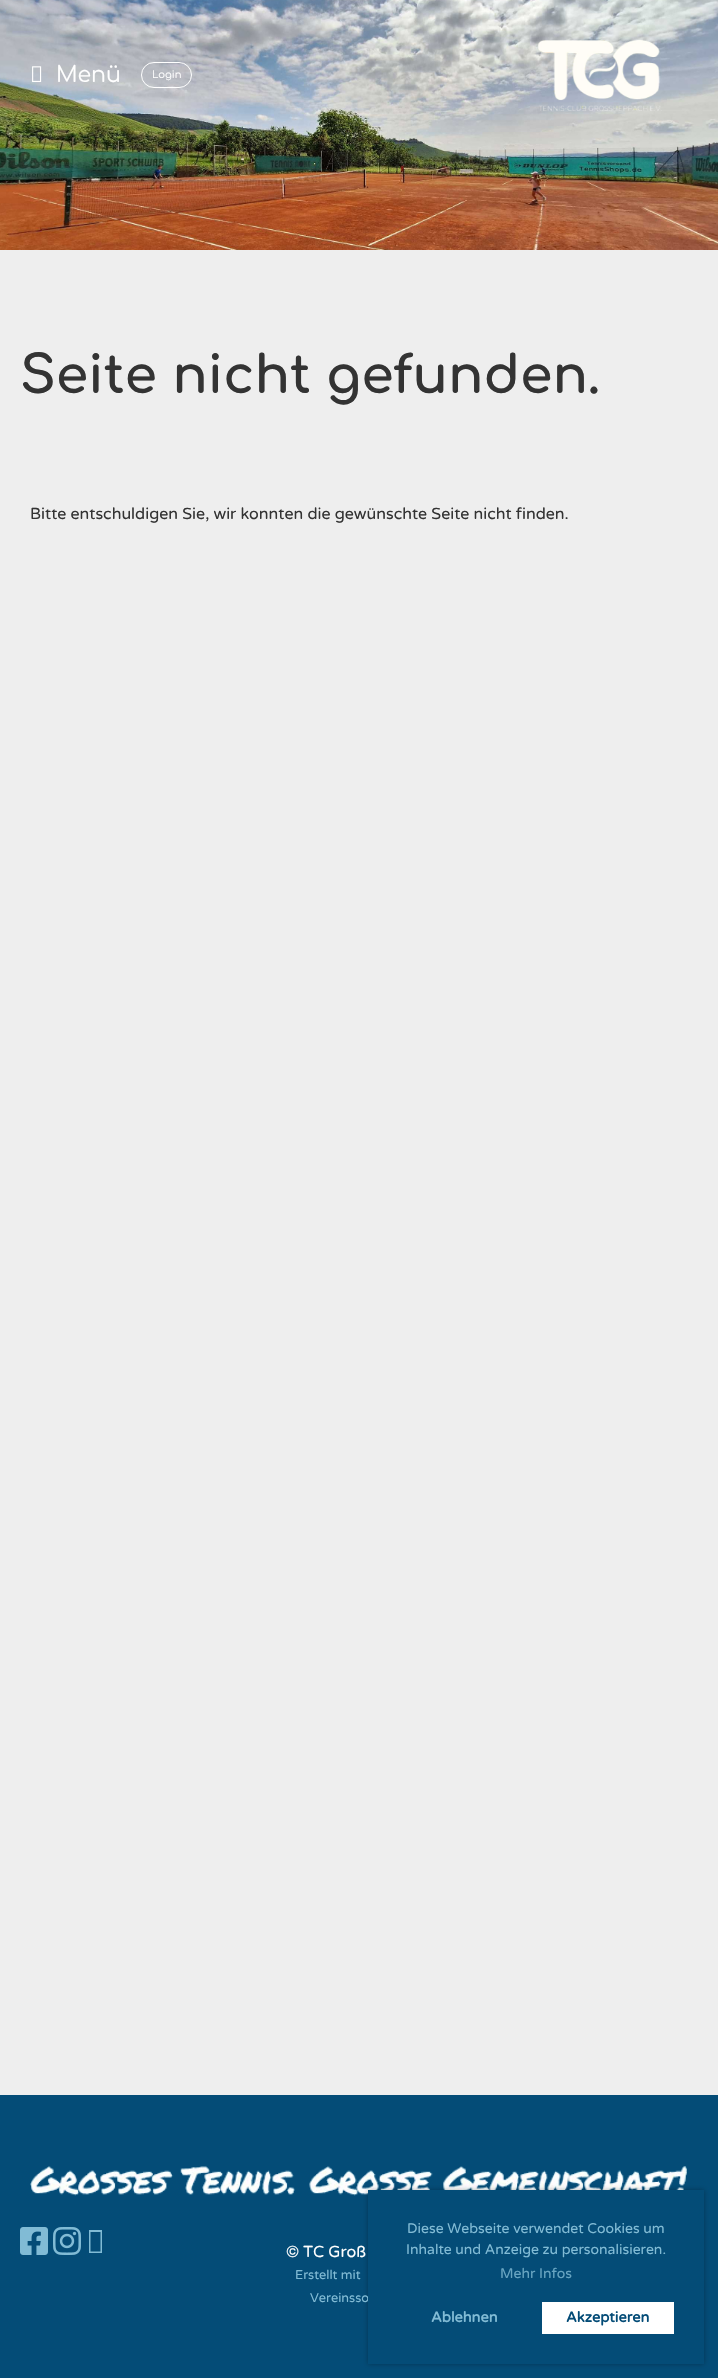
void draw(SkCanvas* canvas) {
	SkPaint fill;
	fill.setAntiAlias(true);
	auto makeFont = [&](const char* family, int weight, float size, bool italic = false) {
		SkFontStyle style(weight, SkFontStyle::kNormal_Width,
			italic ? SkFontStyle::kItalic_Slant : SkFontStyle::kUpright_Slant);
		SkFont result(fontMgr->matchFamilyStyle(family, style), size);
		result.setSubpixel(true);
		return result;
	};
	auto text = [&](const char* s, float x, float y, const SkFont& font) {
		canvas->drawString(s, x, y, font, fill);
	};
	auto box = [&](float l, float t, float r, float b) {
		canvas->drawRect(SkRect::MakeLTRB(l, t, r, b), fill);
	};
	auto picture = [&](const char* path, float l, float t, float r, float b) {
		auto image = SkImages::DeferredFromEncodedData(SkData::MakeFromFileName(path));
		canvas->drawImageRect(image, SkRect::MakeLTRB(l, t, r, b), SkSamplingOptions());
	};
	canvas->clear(0xFFEEEEEE);
	picture("image2.png", 0, 0, 718, 250);
	picture("image0.png", 32, 66, 42, 82);
	fill.setStyle(SkPaint::kStroke_Style);
	fill.setStrokeWidth(1);
	fill.setColor(0xFFFFFFFF);
	canvas->drawRoundRect(SkRect::MakeLTRB(141.5f, 62.5f, 191.5f, 87.5f), 12.5f, 12.5f, fill);
	picture("image1.png", 537, 40, 662, 111);
	fill.setStyle(SkPaint::kFill_Style);
	fill.setColor(0xFF044C77);
	box(0, 2095, 718, 2378);
	picture("image3.png", 30, 2166, 687, 2196);
	picture("image4.png", 20, 2227, 48, 2255);
	picture("image5.png", 53, 2227, 81, 2255);
	fill.setColor(0xFF81BBD5);
	canvas->drawPath(SkPathBuilder().moveTo(89, 2253).lineTo(89, 2230).lineTo(102, 2230).lineTo(102, 2253).close().moveTo(90.5f, 2251.5f).lineTo(100.5f, 2251.5f).lineTo(100.5f, 2232).lineTo(90.5f, 2232).close().detach(), fill);
	fill.setColor(0x4D000000);
	fill.setMaskFilter(SkMaskFilter::MakeBlur(kNormal_SkBlurStyle, 2.5f));
	canvas->drawRect(SkRect::MakeLTRB(368, 2190, 704, 2364), fill);
	fill.setMaskFilter(nullptr);
	auto font1 = makeFont("Comfortaa", 400, 22);
	fill.setColor(0xFFFFFFFF);
	text("Menü", 56, 82, font1);
	auto font2 = makeFont("Comfortaa", 400, 10);
	text("Login", 152, 78, font2);
	auto font3 = makeFont("Comfortaa", 700, 52);
	fill.setColor(0xFF333333);
	text("Seite nicht gefunden.", 20, 393, font3);
	auto font4 = makeFont("Varela Round", 400, 16);
	text("Bitte entschuldigen Sie, wir konnten die gewünschte Seite nicht finden.", 30, 519, font4);
	fill.setColor(0xFFFFFFFF);
	text("© TC Groß", 286, 2257, font4);
	auto font5 = makeFont("Varela Round", 400, 12.75f);
	fill.setColor(0xFF81BBD5);
	text("Erstellt mit", 295, 2279, font5);
	text("Vereinsso", 310, 2302, font5);
	fill.setColor(0xFF044C77);
	box(368, 2190, 704, 2364);
	auto font6 = makeFont("Varela Round", 400, 14);
	fill.setColor(0xFF81BBD5);
	text("Diese Webseite verwendet Cookies um", 407, 2233, font6);
	text("Inhalte und Anzeige zu personalisieren.", 406, 2254, font6);
	fill.setColor(0xFF68A5C2);
	text("Mehr Infos", 500, 2278, font6);
	auto font7 = makeFont("Varela Round", 700, 14.5f);
	fill.setColor(0xFF81BBD5);
	text("Ablehnen", 431, 2322, font7);
	fill.setColor(0xFFFFFFFF);
	box(542, 2302, 674, 2334);
	fill.setColor(0xFF044C77);
	text("Akzeptieren", 566, 2322, font7);
}
